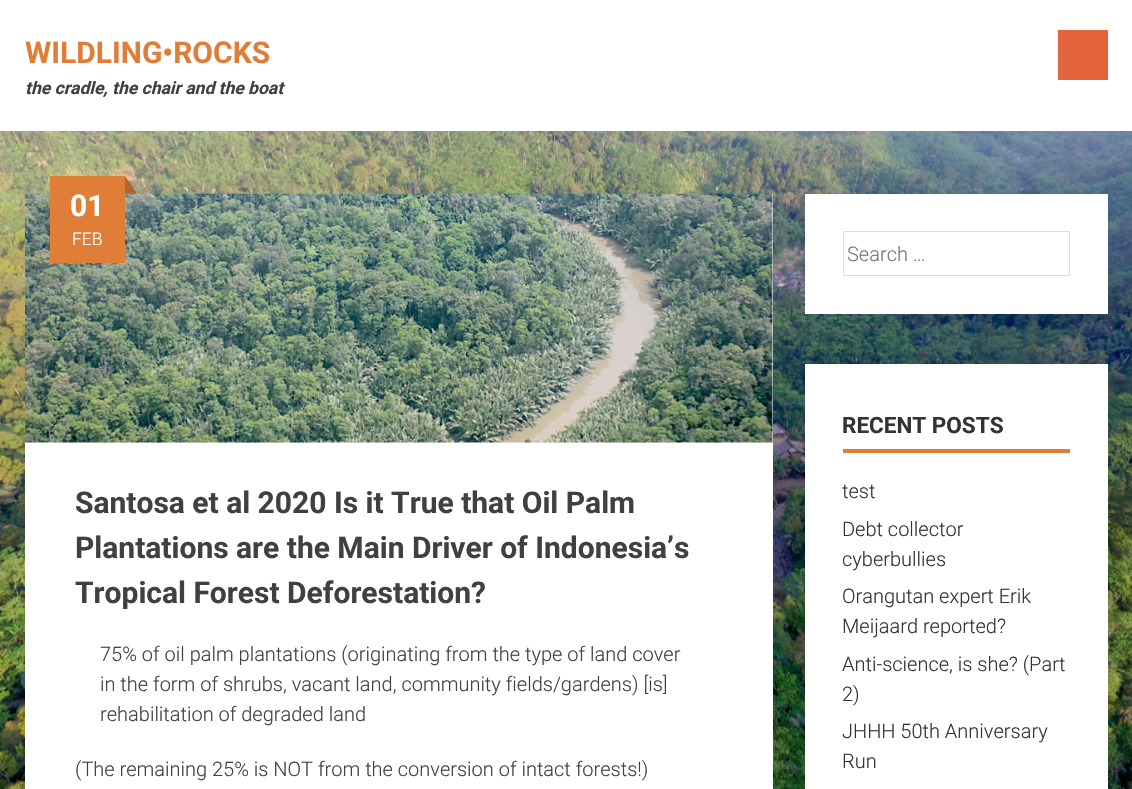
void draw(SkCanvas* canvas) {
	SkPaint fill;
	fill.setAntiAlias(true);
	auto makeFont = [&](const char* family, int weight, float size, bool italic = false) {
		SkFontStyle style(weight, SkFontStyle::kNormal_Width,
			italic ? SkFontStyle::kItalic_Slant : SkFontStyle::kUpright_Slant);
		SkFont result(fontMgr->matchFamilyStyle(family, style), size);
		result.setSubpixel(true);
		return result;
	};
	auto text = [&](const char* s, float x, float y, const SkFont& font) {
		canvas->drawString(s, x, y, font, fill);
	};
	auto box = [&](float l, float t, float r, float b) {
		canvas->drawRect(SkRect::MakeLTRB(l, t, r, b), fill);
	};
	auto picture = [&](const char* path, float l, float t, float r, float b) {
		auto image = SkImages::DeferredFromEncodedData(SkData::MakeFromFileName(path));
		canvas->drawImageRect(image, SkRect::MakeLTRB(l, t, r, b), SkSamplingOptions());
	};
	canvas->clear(0xFFFFFFFF);
	picture("image0.png", 0, 131, 1132, 789);
	fill.setColor(0xFFE3633B);
	box(1058, 30, 1108, 80);
	fill.setColor(0xFFFFFFFF);
	box(25, 194, 773, 789);
	fill.setColor(0xFFB3642B);
	canvas->drawPath(SkPathBuilder().moveTo(137.5f, 194).lineTo(125, 194).lineTo(131, 185).close().detach(), fill);
	canvas->drawPath(SkPathBuilder().moveTo(125, 194).lineTo(125, 176).lineTo(131, 185).close().detach(), fill);
	picture("image1.png", 25, 193, 773, 443);
	fill.setColor(0xFFE07D36);
	box(50, 176, 125, 263);
	fill.setColor(0xFFFFFFFF);
	box(805, 194, 1108, 314);
	fill.setStyle(SkPaint::kStroke_Style);
	fill.setStrokeWidth(1);
	fill.setColor(0xFFDDDDDD);
	canvas->drawRoundRect(SkRect::MakeLTRB(843.5f, 231.5f, 1069.5f, 275.5f), 0.5f, 0.5f, fill);
	fill.setStyle(SkPaint::kFill_Style);
	fill.setColor(0xFFFFFFFF);
	box(805, 364, 1108, 789);
	fill.setColor(0xFFE07D36);
	box(843, 449, 1070, 453);
	auto font1 = makeFont("Roboto", 700, 30);
	text("WILDLING•ROCKS", 25, 63, font1);
	auto font2 = makeFont("Roboto", 700, 17.5f, true);
	fill.setColor(0xFF404040);
	text("the cradle, the chair and the boat", 25, 94, font2);
	fill.setColor(0xFFFFFFFF);
	text("01", 70, 216, font1);
	auto font3 = makeFont("Roboto", 300, 17.5f);
	text("FEB", 72, 245, font3);
	fill.setColor(0xFF404040);
	text("Santosa et al 2020 Is it True that Oil Palm", 75, 513, font1);
	text("Plantations are the Main Driver of Indonesia’s", 75, 558, font1);
	text("Tropical Forest Deforestation?", 75, 603, font1);
	auto font4 = makeFont("Roboto", 300, 20);
	text("75% of oil palm plantations (originating from the type of land cover", 100, 661, font4);
	text("in the form of shrubs, vacant land, community fields/gardens) [is]", 100, 691, font4);
	text("rehabilitation of degraded land", 100, 721, font4);
	text("(The remaining 25% is NOT from the conversion of intact forests!)", 75, 776, font4);
	fill.setColor(0xFF757575);
	text("Search …", 847, 261, font4);
	auto font5 = makeFont("Roboto", 700, 22.5f);
	fill.setColor(0xFF333333);
	text("RECENT POSTS", 842, 433, font5);
	text("test", 842, 498, font4);
	text("Debt collector", 842, 536, font4);
	text("cyberbullies", 842, 566, font4);
	text("Orangutan expert Erik", 842, 603, font4);
	text("Meijaard reported?", 842, 633, font4);
	text("Anti-science, is she? (Part", 842, 671, font4);
	text("2)", 842, 701, font4);
	text("JHHH 50th Anniversary", 842, 738, font4);
	text("Run", 842, 768, font4);
}
